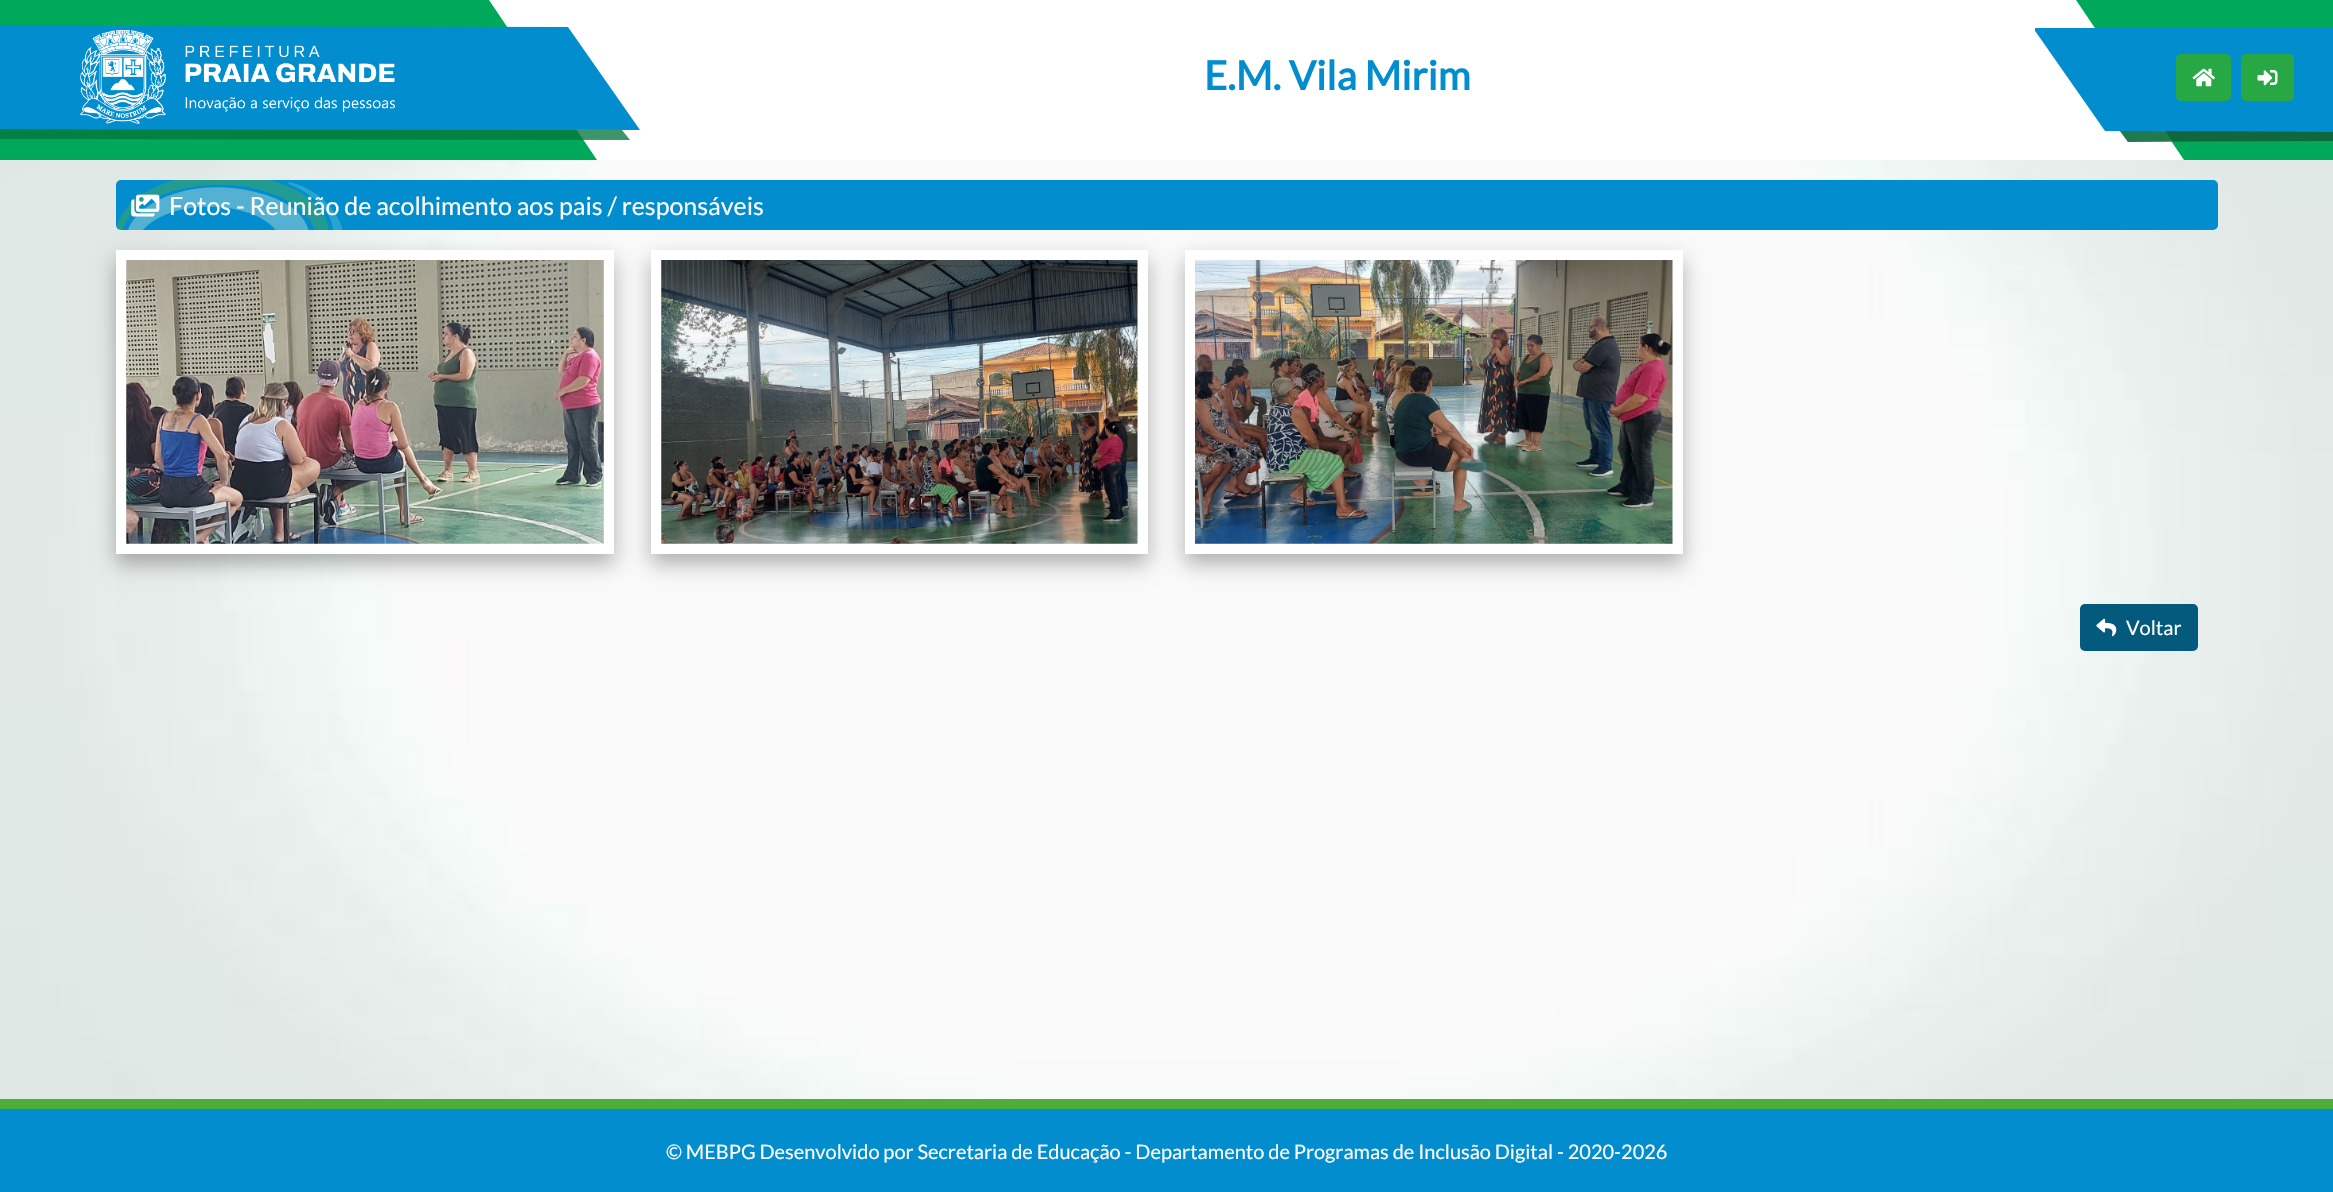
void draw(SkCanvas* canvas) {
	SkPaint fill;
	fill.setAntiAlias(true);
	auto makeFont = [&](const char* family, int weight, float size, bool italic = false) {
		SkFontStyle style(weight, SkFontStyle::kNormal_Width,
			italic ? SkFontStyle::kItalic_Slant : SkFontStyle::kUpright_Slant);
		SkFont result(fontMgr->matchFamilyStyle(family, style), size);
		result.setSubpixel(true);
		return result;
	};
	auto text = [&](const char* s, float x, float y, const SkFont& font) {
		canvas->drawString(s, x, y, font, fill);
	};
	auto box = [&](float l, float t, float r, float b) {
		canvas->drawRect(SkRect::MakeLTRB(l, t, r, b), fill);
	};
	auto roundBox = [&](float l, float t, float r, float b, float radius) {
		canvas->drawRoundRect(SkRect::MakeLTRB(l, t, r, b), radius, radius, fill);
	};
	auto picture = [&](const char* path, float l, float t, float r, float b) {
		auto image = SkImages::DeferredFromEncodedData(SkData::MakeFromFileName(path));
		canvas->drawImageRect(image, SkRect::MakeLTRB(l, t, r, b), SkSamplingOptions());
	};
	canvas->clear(0xFFFFFFFF);
	picture("image0.png", 0, 160, 2333, 1099);
	fill.setColor(0xFF00A859);
	canvas->drawPath(SkPathBuilder().moveTo(489, 0).lineTo(597, 160).lineTo(0, 160).lineTo(0, 0).close().detach(), fill);
	fill.setColor(0xC403753C);
	canvas->drawPath(SkPathBuilder().moveTo(622, 130).lineTo(630, 140).lineTo(0, 139).lineTo(0, 129).close().detach(), fill);
	fill.setColor(0xFF028DCF);
	canvas->drawPath(SkPathBuilder().moveTo(0, 129).lineTo(640, 130).lineTo(568, 27).lineTo(0, 26).close().detach(), fill);
	picture("image1.png", 80, 30, 395, 124);
	fill.setColor(0xFF00A859);
	canvas->drawPath(SkPathBuilder().moveTo(2184, 160).lineTo(2076, 0).lineTo(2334, 0).lineTo(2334, 160).close().detach(), fill);
	fill.setColor(0xFF363636);
	canvas->drawPath(SkPathBuilder().moveTo(2172, 141).lineTo(2095, 28).lineTo(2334, 28).lineTo(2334, 141).close().detach(), fill);
	canvas->save();
	canvas->clipRect(SkRect::MakeLTRB(2035, 0, 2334, 160));
	fill.setColor(0xFF028DCF);
	canvas->drawPath(SkPathBuilder().moveTo(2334, 28).lineTo(2033, 28).lineTo(2105, 131).lineTo(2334, 132).close().detach(), fill);
	canvas->restore();
	fill.setColor(0xFF848688);
	canvas->drawPath(SkPathBuilder(SkPathFillType::kEvenOdd).moveTo(2172, 141).lineTo(2128, 142).lineTo(2120, 131).lineTo(2165, 131).close().detach(), fill);
	fill.setColor(0xC403753C);
	canvas->drawPath(SkPathBuilder(SkPathFillType::kEvenOdd).moveTo(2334, 132).lineTo(2120, 131).lineTo(2128, 142).lineTo(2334, 141).close().detach(), fill);
	fill.setColor(0xFF28A745);
	roundBox(2176, 54, 2231, 101, 5);
	picture("image2.png", 2192, 68, 2215, 87);
	roundBox(2241, 54, 2294, 101, 5);
	picture("image3.png", 2257, 70, 2278, 86);
	fill.setColor(0xFF028DCF);
	roundBox(116, 180, 2218, 230, 5);
	picture("image4.png", 116, 180, 343, 230);
	picture("image5.png", 131, 194, 160, 217);
	fill.setColor(0x4D000000);
	fill.setMaskFilter(SkMaskFilter::MakeBlur(kNormal_SkBlurStyle, 10));
	canvas->drawRect(SkRect::MakeLTRB(116, 260, 614, 564), fill);
	fill.setMaskFilter(nullptr);
	fill.setColor(0xFFFFFFFF);
	box(116, 250, 614, 554);
	picture("image6.png", 126, 260, 604, 544);
	fill.setColor(0x4D000000);
	fill.setMaskFilter(SkMaskFilter::MakeBlur(kNormal_SkBlurStyle, 10));
	canvas->drawRect(SkRect::MakeLTRB(651, 260, 1148, 564), fill);
	fill.setMaskFilter(nullptr);
	fill.setColor(0xFFFFFFFF);
	box(651, 250, 1148, 554);
	picture("image7.png", 661, 260, 1138, 544);
	fill.setColor(0x4D000000);
	fill.setMaskFilter(SkMaskFilter::MakeBlur(kNormal_SkBlurStyle, 10));
	canvas->drawRect(SkRect::MakeLTRB(1185, 260, 1683, 564), fill);
	fill.setMaskFilter(nullptr);
	fill.setColor(0xFFFFFFFF);
	box(1185, 250, 1683, 554);
	picture("image8.png", 1195, 260, 1673, 544);
	fill.setColor(0xFF045A7C);
	roundBox(2080, 604, 2198, 651, 5);
	picture("image9.png", 2096, 618, 2117, 637);
	fill.setColor(0xFF028DCF);
	box(0, 1109, 2333, 1192);
	fill.setColor(0xFF4FAE3A);
	box(0, 1099, 2333, 1109);
	auto font1 = makeFont("Lato", 700, 40);
	fill.setColor(0xFF028DCF);
	text("E.M. Vila Mirim", 1204, 90, font1);
	auto font2 = makeFont("Lato", 400, 25);
	fill.setColor(0xFFFFFFFF);
	text("Fotos - Reunião de acolhimento aos pais / responsáveis", 169, 215, font2);
	auto font3 = makeFont("Lato", 400, 20);
	text("Voltar", 2126, 635, font3);
	text("© MEBPG Desenvolvido por Secretaria de Educação - Departamento de Programas de Inclusão Digital - 2020-2026", 666, 1159, font3);
}
